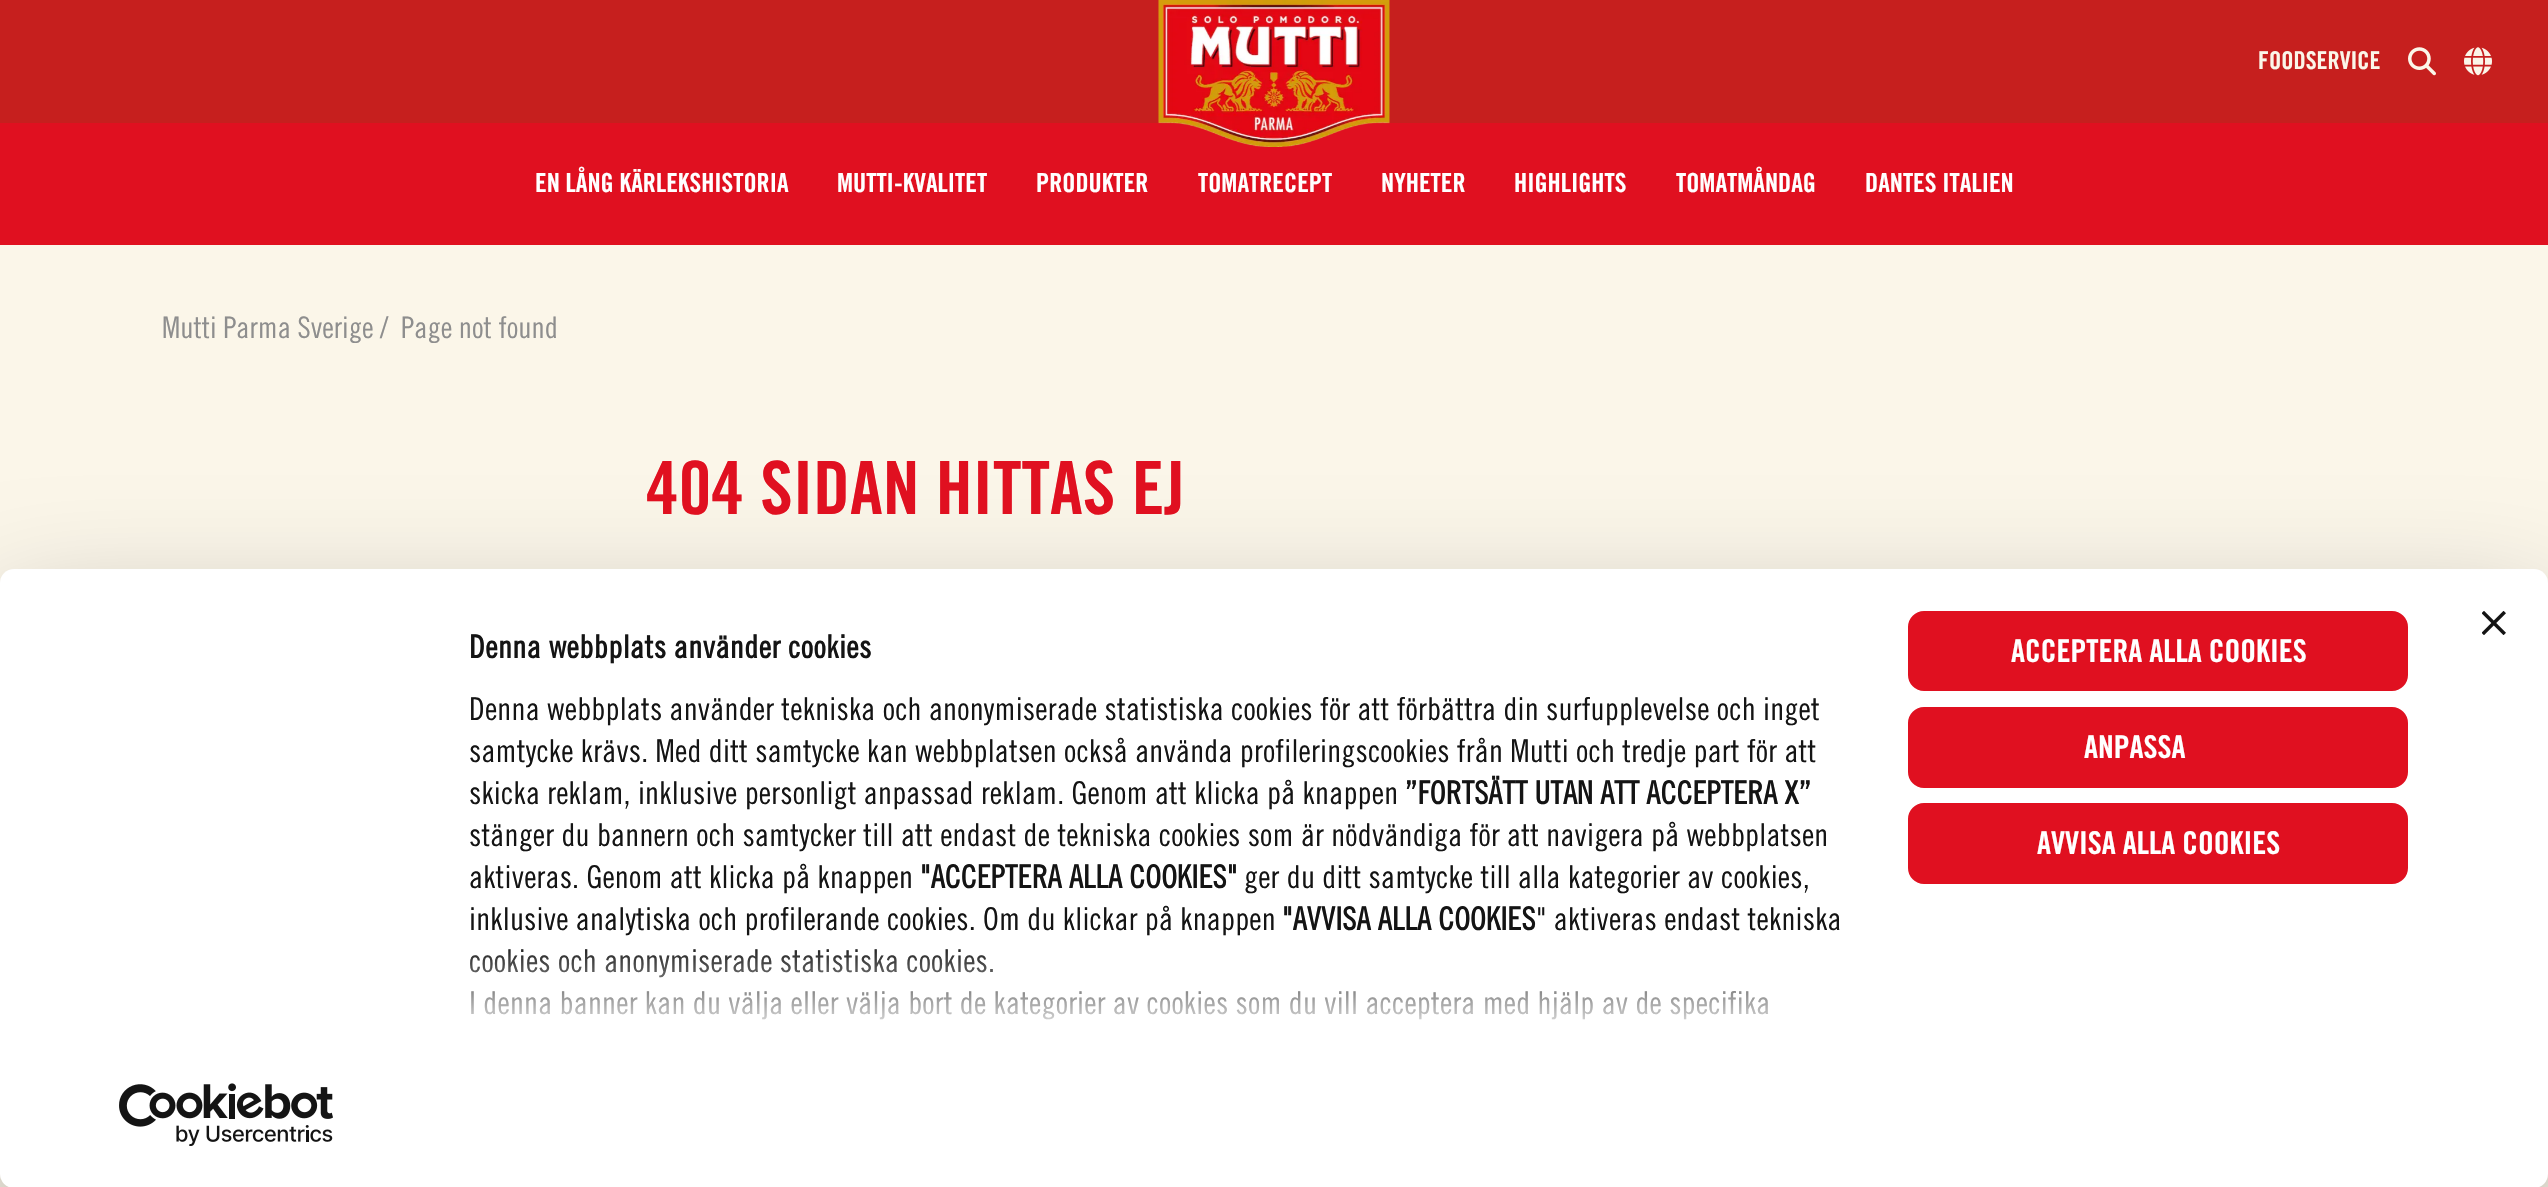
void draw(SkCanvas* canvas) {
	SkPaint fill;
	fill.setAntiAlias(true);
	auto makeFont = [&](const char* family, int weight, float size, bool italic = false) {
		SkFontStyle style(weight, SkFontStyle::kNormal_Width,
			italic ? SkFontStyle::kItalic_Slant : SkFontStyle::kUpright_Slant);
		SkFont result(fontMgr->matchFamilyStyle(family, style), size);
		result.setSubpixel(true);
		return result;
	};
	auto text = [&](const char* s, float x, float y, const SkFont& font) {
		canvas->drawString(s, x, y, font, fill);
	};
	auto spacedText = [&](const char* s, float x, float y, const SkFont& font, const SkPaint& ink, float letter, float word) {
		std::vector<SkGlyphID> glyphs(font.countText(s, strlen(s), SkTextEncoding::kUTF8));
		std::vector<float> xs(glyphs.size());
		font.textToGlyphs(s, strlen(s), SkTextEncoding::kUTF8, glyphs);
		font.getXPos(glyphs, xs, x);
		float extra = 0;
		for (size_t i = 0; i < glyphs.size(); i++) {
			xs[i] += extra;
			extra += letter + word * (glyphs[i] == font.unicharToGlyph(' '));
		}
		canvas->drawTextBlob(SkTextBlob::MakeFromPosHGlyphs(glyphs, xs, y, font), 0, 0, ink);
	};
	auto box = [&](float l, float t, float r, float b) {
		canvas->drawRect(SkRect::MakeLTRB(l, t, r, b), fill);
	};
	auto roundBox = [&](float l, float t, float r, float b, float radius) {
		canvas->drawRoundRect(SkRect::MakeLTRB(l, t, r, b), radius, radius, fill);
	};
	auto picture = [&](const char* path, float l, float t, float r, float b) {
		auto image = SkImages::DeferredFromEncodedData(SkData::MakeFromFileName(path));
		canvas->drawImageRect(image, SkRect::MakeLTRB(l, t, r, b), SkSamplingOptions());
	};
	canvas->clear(0xFFFBF6E9);
	fill.setColor(0xFFE01020);
	box(0, 123, 2548, 245);
	fill.setColor(0xFFC61F1E);
	box(0, 0, 2548, 123);
	picture("image0.png", 1158, 0, 1390, 147);
	picture("image1.png", 2408, 47, 2436, 76);
	picture("image2.png", 2464, 47, 2492, 76);
	fill.setColor(0x4D000000);
	fill.setMaskFilter(SkMaskFilter::MakeBlur(kNormal_SkBlurStyle, 61));
	canvas->drawRoundRect(SkRect::MakeLTRB(0, 621, 2548, 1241), 14, 14, fill);
	fill.setMaskFilter(nullptr);
	fill.setColor(0xFFFFFFFF);
	roundBox(0, 569, 2548, 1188, 14);
	picture("image3.png", 2482, 611, 2506, 635);
	fill.setColor(0xFFE01020);
	canvas->drawRoundRect(SkRect::MakeLTRB(1910, 613, 2406, 689), 14, 14, fill);
	fill.setStyle(SkPaint::kStroke_Style);
	fill.setStrokeWidth(4);
	canvas->drawRoundRect(SkRect::MakeLTRB(1910, 613, 2406, 689), 14, 14, fill);
	fill.setStyle(SkPaint::kFill_Style);
	canvas->drawRoundRect(SkRect::MakeLTRB(1910, 709, 2406, 786), 14, 14, fill);
	fill.setStyle(SkPaint::kStroke_Style);
	canvas->drawRoundRect(SkRect::MakeLTRB(1910, 709, 2406, 786), 14, 14, fill);
	fill.setStyle(SkPaint::kFill_Style);
	canvas->drawRoundRect(SkRect::MakeLTRB(1910, 805, 2406, 882), 14, 14, fill);
	fill.setStyle(SkPaint::kStroke_Style);
	canvas->drawRoundRect(SkRect::MakeLTRB(1910, 805, 2406, 882), 14, 14, fill);
	picture("image4.png", 119, 1083, 333, 1146);
	auto font1 = makeFont("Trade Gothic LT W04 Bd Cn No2", 700, 24.5f);
	fill.setStyle(SkPaint::kFill_Style);
	fill.setColor(0xFFFBF6E9);
	text("FOODSERVICE", 2258, 69, font1);
	auto font2 = makeFont("Trade Gothic LT W04 Bd Cn No2", 700, 26.25f);
	fill.setColor(0xFFFFFFFF);
	text("EN LÅNG KÄRLEKSHISTORIA", 535, 192, font2);
	text("MUTTI-KVALITET", 837, 192, font2);
	text("PRODUKTER", 1036, 192, font2);
	text("TOMATRECEPT", 1198, 192, font2);
	text("NYHETER", 1381, 192, font2);
	text("HIGHLIGHTS", 1514, 192, font2);
	text("TOMATMÅNDAG", 1676, 192, font2);
	text("DANTES ITALIEN", 1865, 192, font2);
	auto font3 = makeFont("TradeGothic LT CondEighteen", 500, 29.75f);
	fill.setColor(0xFF8E8E8E);
	text("Mutti Parma Sverige /", 162, 338, font3);
	text("Page not found", 401, 338, font3);
	auto font4 = makeFont("Trade Gothic LT W04 Bd Cn No2", 700, 73.5f);
	fill.setColor(0xFFE01020);
	text("404 SIDAN HITTAS EJ", 646, 514, font4);
	auto font5 = makeFont("TradeGothic LT CondEighteen", 700, 31.5f);
	fill.setColor(0xFF141414);
	spacedText("Denna webbplats använder cookies", 469, 658, font5, fill, 0.45f, 0);
	auto font6 = makeFont("TradeGothic LT CondEighteen", 500, 31.5f);
	spacedText("Denna webbplats använder tekniska och anonymiserade statistiska cookies för att förbättra din surfupplevelse och inget", 469, 720, font6, fill, 0.18f, 0);
	spacedText("samtycke krävs. Med ditt samtycke kan webbplatsen också använda profileringscookies från Mutti och tredje part för att", 469, 762, font6, fill, 0.18f, 0);
	spacedText("skicka reklam, inklusive personligt anpassad reklam. Genom att klicka på knappen", 469, 804, font6, fill, 0.18f, 0);
	spacedText("”FORTSÄTT UTAN ATT ACCEPTERA X”", 1405, 804, font5, fill, 0.18f, 0);
	spacedText("stänger du bannern och samtycker till att endast de tekniska cookies som är nödvändiga för att navigera på webbplatsen", 469, 846, font6, fill, 0.18f, 0);
	spacedText("aktiveras. Genom att klicka på knappen", 469, 888, font6, fill, 0.18f, 0);
	spacedText("\"ACCEPTERA ALLA COOKIES\"", 920, 888, font5, fill, 0.18f, 0);
	spacedText("ger du ditt samtycke till alla kategorier av cookies,", 1244, 888, font6, fill, 0.18f, 0);
	spacedText("inklusive analytiska och profilerande cookies. Om du klickar på knappen", 469, 930, font6, fill, 0.18f, 0);
	spacedText("\"AVVISA ALLA COOKIES", 1282, 930, font5, fill, 0.18f, 0);
	spacedText("\" aktiveras endast tekniska", 1536, 930, font6, fill, 0.18f, 0);
	spacedText("cookies och anonymiserade statistiska cookies.", 469, 972, font6, fill, 0.18f, 0);
	spacedText("I denna banner kan du välja eller välja bort de kategorier av cookies som du vill acceptera med hjälp av de specifika", 469, 1014, font6, fill, 0.18f, 0);
	{
		const SkColor colors[] = {0xFFFFFFFF, 0xCCFFFFFF, 0x00FFFFFF};
		const float stops[] = {0, 0.5f, 1};
		const SkPoint ends[] = {{1160, 1099}, {1160, 942}};
		fill.setShader(SkGradientShader::MakeLinear(ends, colors, stops, 3, SkTileMode::kClamp));
		fill.setAlpha(255);
	}
	box(469, 949, 1768, 1020);
	auto font7 = makeFont("Trade Gothic LT W04 Bd Cn No2", 700, 31.5f);
	fill.setShader(nullptr);
	fill.setColor(0xFFFFFFFF);
	text("ACCEPTERA ALLA COOKIES", 2011, 662, font7);
	text("ANPASSA", 2084, 758, font7);
	text("AVVISA ALLA COOKIES", 2037, 854, font7);
}
